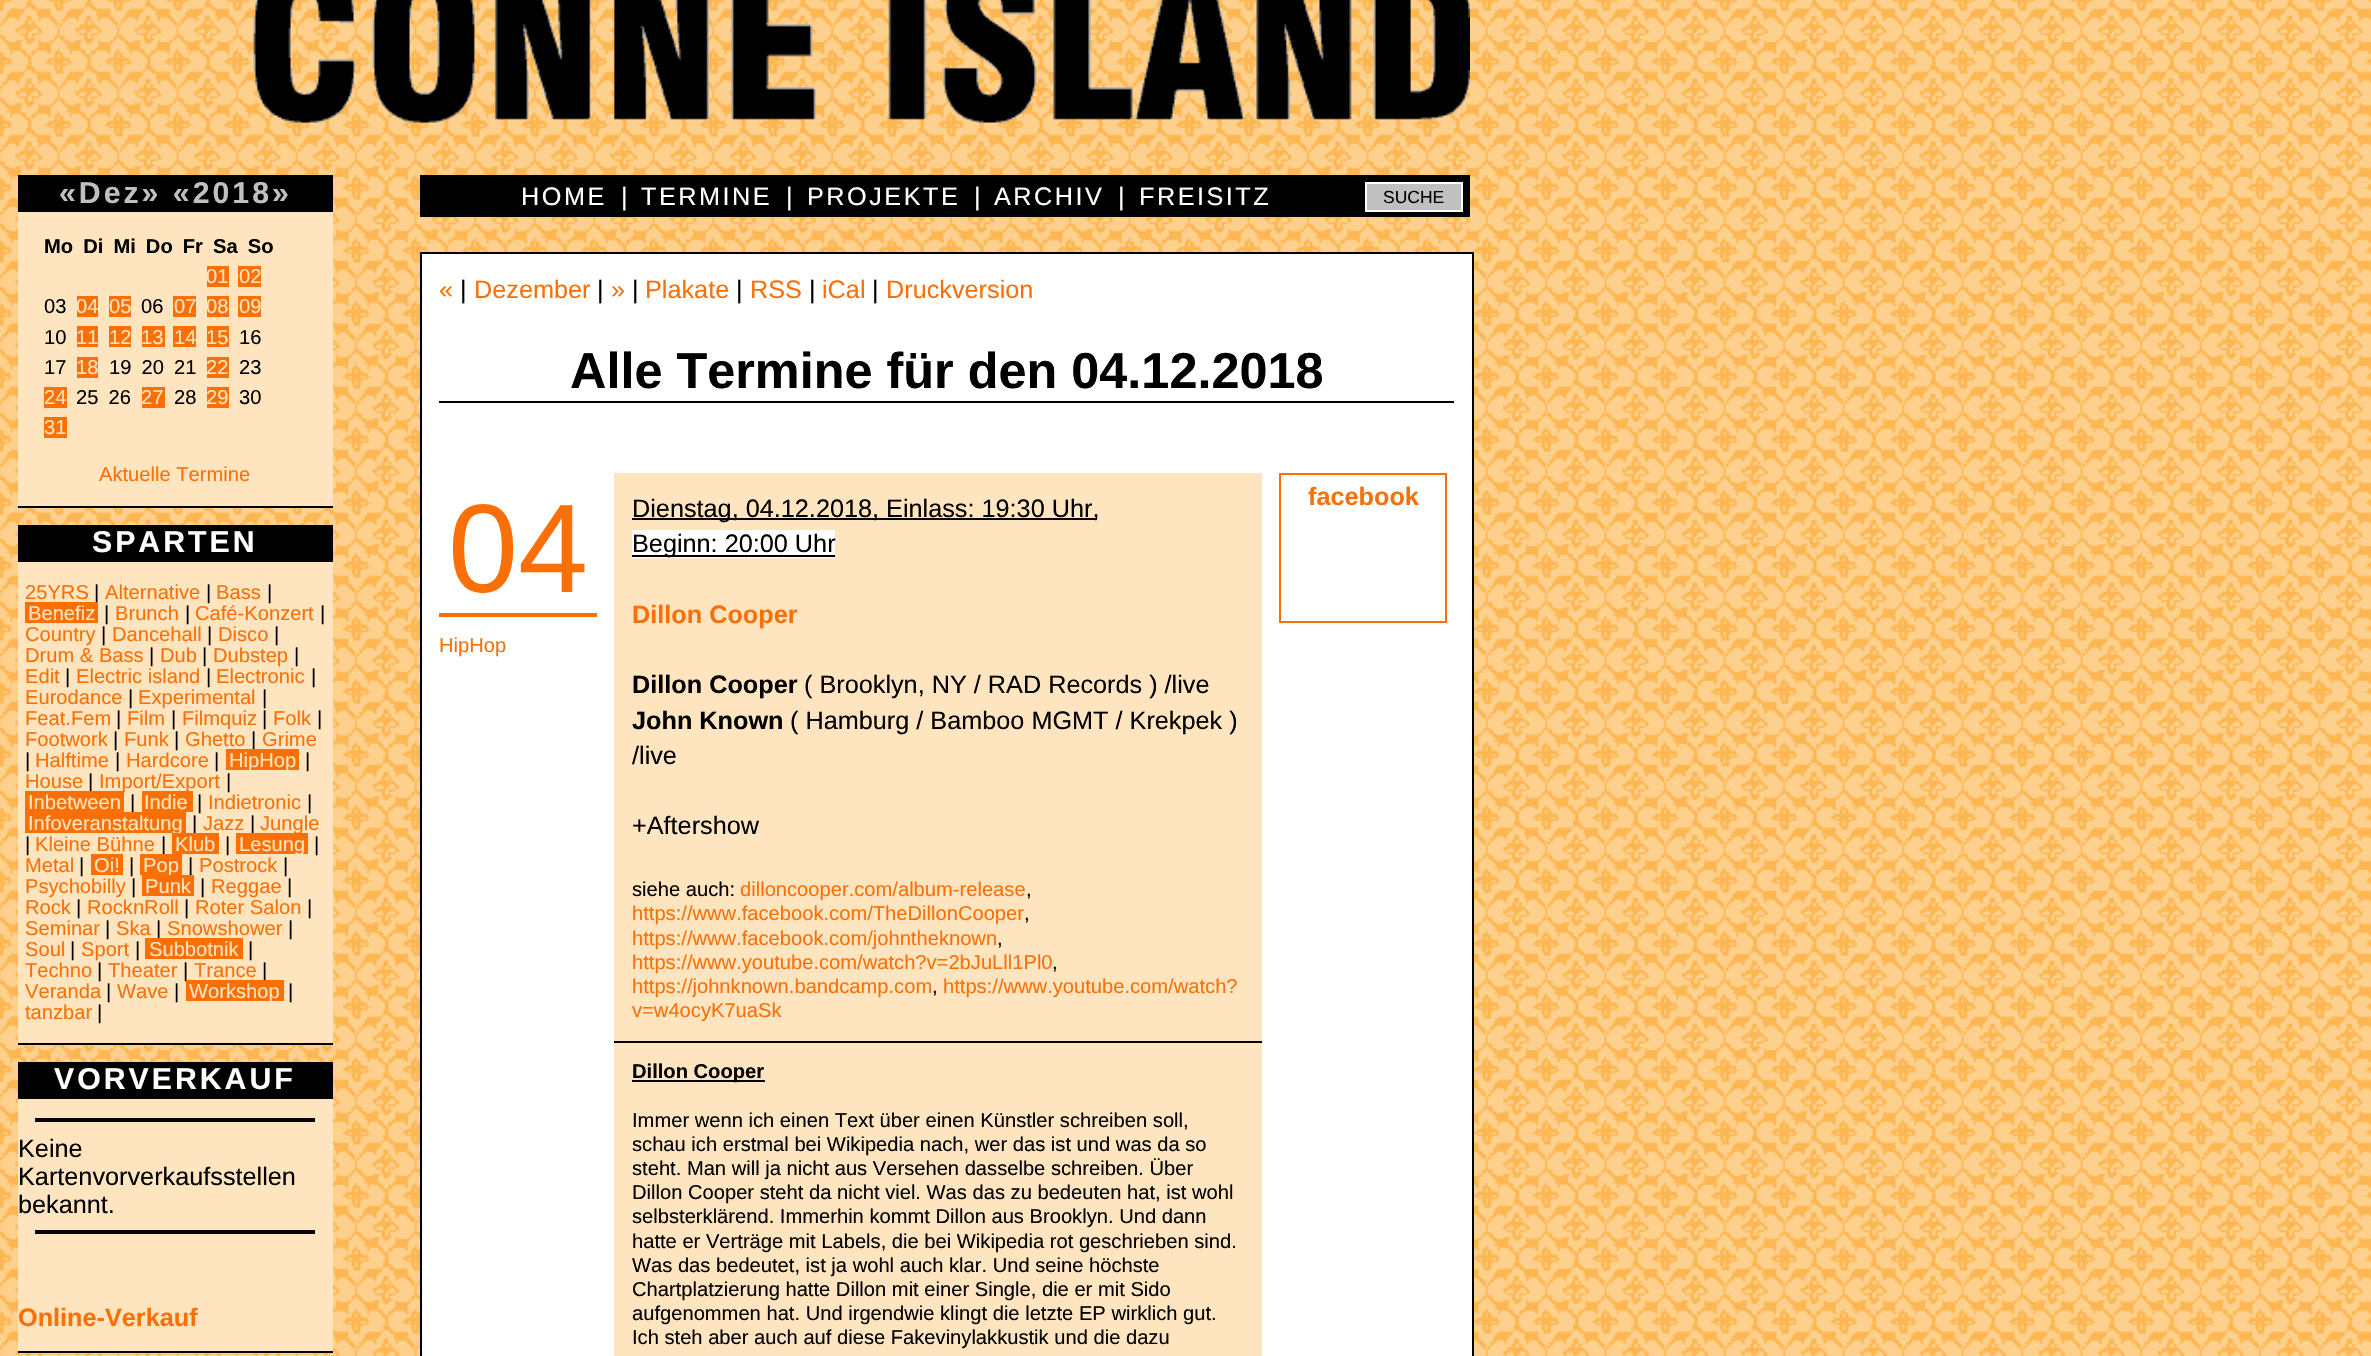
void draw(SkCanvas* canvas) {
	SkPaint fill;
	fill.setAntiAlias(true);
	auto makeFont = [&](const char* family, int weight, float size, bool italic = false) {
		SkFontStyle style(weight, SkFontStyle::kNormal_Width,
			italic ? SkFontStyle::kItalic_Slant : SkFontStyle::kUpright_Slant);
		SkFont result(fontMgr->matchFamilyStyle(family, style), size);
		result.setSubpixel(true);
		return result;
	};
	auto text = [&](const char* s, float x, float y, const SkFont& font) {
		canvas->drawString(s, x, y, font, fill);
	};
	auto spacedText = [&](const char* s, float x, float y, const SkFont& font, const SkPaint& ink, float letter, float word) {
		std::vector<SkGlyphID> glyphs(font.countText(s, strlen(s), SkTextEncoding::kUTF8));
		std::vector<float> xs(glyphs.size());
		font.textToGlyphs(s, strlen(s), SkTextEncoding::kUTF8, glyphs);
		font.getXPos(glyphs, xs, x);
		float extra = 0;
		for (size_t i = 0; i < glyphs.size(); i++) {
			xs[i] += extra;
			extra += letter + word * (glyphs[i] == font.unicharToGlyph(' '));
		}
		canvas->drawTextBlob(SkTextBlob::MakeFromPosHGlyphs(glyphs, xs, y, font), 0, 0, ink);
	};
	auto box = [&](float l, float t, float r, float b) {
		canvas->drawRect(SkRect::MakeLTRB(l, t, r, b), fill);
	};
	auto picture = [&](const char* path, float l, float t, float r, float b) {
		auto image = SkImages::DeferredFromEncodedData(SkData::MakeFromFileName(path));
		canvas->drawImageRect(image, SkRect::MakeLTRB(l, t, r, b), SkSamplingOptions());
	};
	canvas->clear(0xFFFFFFFF);
	picture("image0.png", 0, 0, 2371, 1356);
	picture("image1.png", 253, 0, 1470, 123);
	fill.setColor(0xFFFEE4BF);
	box(18, 212, 333, 506);
	fill.setColor(0xFF000000);
	box(18, 506, 333, 508);
	box(18, 175, 333, 212);
	fill.setColor(0xFFFA7007);
	box(207, 266, 229, 287);
	box(238, 266, 261, 287);
	box(77, 296, 98, 317);
	box(109, 296, 131, 317);
	box(173, 296, 196, 317);
	box(207, 296, 229, 317);
	box(238, 296, 261, 317);
	box(77, 326, 98, 347);
	box(109, 326, 131, 347);
	box(142, 326, 165, 347);
	box(173, 326, 196, 347);
	box(207, 326, 229, 347);
	box(77, 357, 98, 378);
	box(207, 357, 229, 378);
	box(44, 387, 67, 408);
	box(142, 387, 165, 408);
	box(207, 387, 229, 408);
	box(44, 417, 67, 438);
	fill.setColor(0xFFFEE4BF);
	box(18, 562, 333, 1043);
	fill.setColor(0xFF000000);
	box(18, 1043, 333, 1045);
	box(18, 525, 333, 562);
	fill.setColor(0xFFFA7007);
	box(142, 791, 193, 812);
	box(91, 854, 123, 875);
	fill.setColor(0xFFFEE4BF);
	box(18, 1099, 333, 1351);
	fill.setColor(0xFF000000);
	box(18, 1351, 333, 1353);
	box(18, 1062, 333, 1099);
	box(35, 1118, 315, 1122);
	box(35, 1230, 315, 1234);
	box(420, 175, 1470, 217);
	fill.setColor(0xFFC0C0C0);
	canvas->drawRect(SkRect::MakeLTRB(1366, 183, 1462, 211), fill);
	fill.setStyle(SkPaint::kStroke_Style);
	fill.setStrokeWidth(2);
	fill.setColor(0xFFFFFFFF);
	canvas->drawRect(SkRect::MakeLTRB(1366, 183, 1462, 211), fill);
	fill.setStyle(SkPaint::kFill_Style);
	canvas->drawRect(SkRect::MakeLTRB(421, 253, 1473, 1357), fill);
	fill.setStyle(SkPaint::kStroke_Style);
	fill.setColor(0xFF000000);
	canvas->drawRect(SkRect::MakeLTRB(421, 253, 1473, 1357), fill);
	fill.setStyle(SkPaint::kFill_Style);
	box(439, 401, 1454, 403);
	fill.setStyle(SkPaint::kStroke_Style);
	fill.setColor(0xFFFA7007);
	canvas->drawRect(SkRect::MakeLTRB(1280, 474, 1446, 622), fill);
	fill.setStyle(SkPaint::kFill_Style);
	box(439, 613, 597, 617);
	fill.setColor(0xFFFEE4BF);
	box(614, 473, 1262, 1041);
	fill.setColor(0xFF000000);
	box(614, 1041, 1262, 1043);
	box(632, 518, 1097, 520);
	fill.setColor(0xFFFFFFFF);
	box(632, 530, 835, 558);
	fill.setColor(0xFF000000);
	box(632, 555, 835, 557);
	fill.setColor(0xFFFEE4BF);
	box(614, 1043, 1262, 1356);
	fill.setColor(0xFF000000);
	box(632, 1080, 765, 1082);
	auto font1 = makeFont("Liberation Sans", 700, 30.25f);
	fill.setColor(0xFFC0C0C0);
	spacedText("«Dez» «2018»", 59, 203, font1, fill, 3, 0);
	auto font2 = makeFont("Liberation Sans", 700, 20.15f);
	fill.setColor(0xFF000000);
	text("Mo Di Mi Do Fr Sa So", 44, 253, font2);
	auto font3 = makeFont("Liberation Sans", 400, 20.15f);
	fill.setColor(0xFFFEE4BF);
	text("01", 206, 283, font3);
	text("02", 239, 283, font3);
	fill.setColor(0xFF000000);
	text("03", 44, 313, font3);
	fill.setColor(0xFFFEE4BF);
	text("04", 76, 313, font3);
	text("05", 109, 313, font3);
	fill.setColor(0xFF000000);
	text("06", 141, 313, font3);
	fill.setColor(0xFFFEE4BF);
	text("07", 174, 313, font3);
	text("08", 206, 313, font3);
	text("09", 239, 313, font3);
	fill.setColor(0xFF000000);
	text("10", 44, 344, font3);
	fill.setColor(0xFFFEE4BF);
	text("11", 76, 344, font3);
	text("12", 109, 344, font3);
	text("13", 141, 344, font3);
	text("14", 174, 344, font3);
	text("15", 206, 344, font3);
	fill.setColor(0xFF000000);
	text("16", 239, 344, font3);
	text("17", 44, 374, font3);
	fill.setColor(0xFFFEE4BF);
	text("18", 76, 374, font3);
	fill.setColor(0xFF000000);
	text("19 20 21", 109, 374, font3);
	fill.setColor(0xFFFEE4BF);
	text("22", 206, 374, font3);
	fill.setColor(0xFF000000);
	text("23", 239, 374, font3);
	fill.setColor(0xFFFEE4BF);
	text("24", 44, 404, font3);
	fill.setColor(0xFF000000);
	text("25 26", 76, 404, font3);
	fill.setColor(0xFFFEE4BF);
	text("27", 141, 404, font3);
	fill.setColor(0xFF000000);
	text("28", 174, 404, font3);
	fill.setColor(0xFFFEE4BF);
	text("29", 206, 404, font3);
	fill.setColor(0xFF000000);
	text("30", 239, 404, font3);
	fill.setColor(0xFFFEE4BF);
	text("31", 44, 434, font3);
	fill.setColor(0xFFFA7007);
	text("Aktuelle Termine", 99, 481, font3);
	fill.setColor(0xFFFFFFFF);
	spacedText("SPARTEN", 92, 552, font1, fill, 3, 0);
	fill.setColor(0xFFFA7007);
	text("25YRS", 25, 599, font3);
	fill.setColor(0xFF000000);
	text("|", 94, 599, font3);
	fill.setColor(0xFFFA7007);
	text("Alternative", 105, 599, font3);
	fill.setColor(0xFF000000);
	text("|", 206, 599, font3);
	fill.setColor(0xFFFA7007);
	text("Bass", 216, 599, font3);
	fill.setColor(0xFF000000);
	text("|", 267, 599, font3);
	fill.setColor(0xFFFA7007);
	box(25, 602, 98, 623);
	fill.setColor(0xFFFEE4BF);
	text("Benefiz", 28, 620, font3);
	fill.setColor(0xFF000000);
	text("|", 104, 620, font3);
	fill.setColor(0xFFFA7007);
	text("Brunch", 115, 620, font3);
	fill.setColor(0xFF000000);
	text("|", 185, 620, font3);
	fill.setColor(0xFFFA7007);
	text("Café-Konzert", 195, 620, font3);
	fill.setColor(0xFF000000);
	text("|", 320, 620, font3);
	fill.setColor(0xFFFA7007);
	text("Country", 25, 641, font3);
	fill.setColor(0xFF000000);
	text("|", 101, 641, font3);
	fill.setColor(0xFFFA7007);
	text("Dancehall", 112, 641, font3);
	fill.setColor(0xFF000000);
	text("|", 207, 641, font3);
	fill.setColor(0xFFFA7007);
	text("Disco", 218, 641, font3);
	fill.setColor(0xFF000000);
	text("|", 274, 641, font3);
	fill.setColor(0xFFFA7007);
	text("Drum & Bass", 25, 662, font3);
	fill.setColor(0xFF000000);
	text("|", 149, 662, font3);
	fill.setColor(0xFFFA7007);
	text("Dub", 160, 662, font3);
	fill.setColor(0xFF000000);
	text("|", 202, 662, font3);
	fill.setColor(0xFFFA7007);
	text("Dubstep", 213, 662, font3);
	fill.setColor(0xFF000000);
	text("|", 294, 662, font3);
	fill.setColor(0xFFFA7007);
	text("Edit", 25, 683, font3);
	fill.setColor(0xFF000000);
	text("|", 65, 683, font3);
	fill.setColor(0xFFFA7007);
	text("Electric island", 76, 683, font3);
	fill.setColor(0xFF000000);
	text("|", 206, 683, font3);
	fill.setColor(0xFFFA7007);
	text("Electronic", 216, 683, font3);
	fill.setColor(0xFF000000);
	text("|", 311, 683, font3);
	fill.setColor(0xFFFA7007);
	text("Eurodance", 25, 704, font3);
	fill.setColor(0xFF000000);
	text("|", 128, 704, font3);
	fill.setColor(0xFFFA7007);
	text("Experimental", 138, 704, font3);
	fill.setColor(0xFF000000);
	text("|", 262, 704, font3);
	fill.setColor(0xFFFA7007);
	text("Feat.Fem", 25, 725, font3);
	fill.setColor(0xFF000000);
	text("|", 116, 725, font3);
	fill.setColor(0xFFFA7007);
	text("Film", 127, 725, font3);
	fill.setColor(0xFF000000);
	text("|", 171, 725, font3);
	fill.setColor(0xFFFA7007);
	text("Filmquiz", 182, 725, font3);
	fill.setColor(0xFF000000);
	text("|", 262, 725, font3);
	fill.setColor(0xFFFA7007);
	text("Folk", 273, 725, font3);
	fill.setColor(0xFF000000);
	text("|", 317, 725, font3);
	fill.setColor(0xFFFA7007);
	text("Footwork", 25, 746, font3);
	fill.setColor(0xFF000000);
	text("|", 113, 746, font3);
	fill.setColor(0xFFFA7007);
	text("Funk", 124, 746, font3);
	fill.setColor(0xFF000000);
	text("|", 174, 746, font3);
	fill.setColor(0xFFFA7007);
	text("Ghetto", 185, 746, font3);
	fill.setColor(0xFF000000);
	text("|", 251, 746, font3);
	fill.setColor(0xFFFA7007);
	text("Grime", 262, 746, font3);
	fill.setColor(0xFF000000);
	text("|", 25, 767, font3);
	fill.setColor(0xFFFA7007);
	text("Halftime", 35, 767, font3);
	fill.setColor(0xFF000000);
	text("|", 115, 767, font3);
	fill.setColor(0xFFFA7007);
	text("Hardcore", 126, 767, font3);
	fill.setColor(0xFF000000);
	text("|", 214, 767, font3);
	fill.setColor(0xFFFA7007);
	box(226, 749, 299, 770);
	fill.setColor(0xFFFEE4BF);
	text("HipHop", 229, 767, font3);
	fill.setColor(0xFF000000);
	text("|", 305, 767, font3);
	fill.setColor(0xFFFA7007);
	text("House", 25, 788, font3);
	fill.setColor(0xFF000000);
	text("|", 88, 788, font3);
	fill.setColor(0xFFFA7007);
	text("Import/Export", 99, 788, font3);
	fill.setColor(0xFF000000);
	text("|", 226, 788, font3);
	fill.setColor(0xFFFA7007);
	box(25, 791, 124, 812);
	fill.setColor(0xFFFEE4BF);
	text("Inbetween", 28, 809, font3);
	fill.setColor(0xFF000000);
	text("|", 130, 809, font3);
	fill.setColor(0xFFFEE4BF);
	text("Indie", 144, 809, font3);
	fill.setColor(0xFF000000);
	text("|", 197, 809, font3);
	fill.setColor(0xFFFA7007);
	text("Indietronic", 208, 809, font3);
	fill.setColor(0xFF000000);
	text("|", 307, 809, font3);
	fill.setColor(0xFFFA7007);
	box(25, 812, 186, 833);
	fill.setColor(0xFFFEE4BF);
	text("Infoveranstaltung", 28, 830, font3);
	fill.setColor(0xFF000000);
	text("|", 192, 830, font3);
	fill.setColor(0xFFFA7007);
	text("Jazz", 203, 830, font3);
	fill.setColor(0xFF000000);
	text("|", 250, 830, font3);
	fill.setColor(0xFFFA7007);
	text("Jungle", 260, 830, font3);
	fill.setColor(0xFF000000);
	text("|", 25, 851, font3);
	fill.setColor(0xFFFA7007);
	text("Kleine Bühne", 35, 851, font3);
	fill.setColor(0xFF000000);
	text("|", 161, 851, font3);
	fill.setColor(0xFFFA7007);
	box(172, 833, 219, 854);
	fill.setColor(0xFFFEE4BF);
	text("Klub", 175, 851, font3);
	fill.setColor(0xFF000000);
	text("|", 225, 851, font3);
	fill.setColor(0xFFFA7007);
	box(236, 833, 308, 854);
	fill.setColor(0xFFFEE4BF);
	text("Lesung", 239, 851, font3);
	fill.setColor(0xFF000000);
	text("|", 314, 851, font3);
	fill.setColor(0xFFFA7007);
	text("Metal", 25, 872, font3);
	fill.setColor(0xFF000000);
	text("|", 79, 872, font3);
	fill.setColor(0xFFFEE4BF);
	text("Oi!", 94, 872, font3);
	fill.setColor(0xFF000000);
	text("|", 129, 872, font3);
	fill.setColor(0xFFFA7007);
	box(140, 854, 182, 875);
	fill.setColor(0xFFFEE4BF);
	text("Pop", 143, 872, font3);
	fill.setColor(0xFF000000);
	text("|", 188, 872, font3);
	fill.setColor(0xFFFA7007);
	text("Postrock", 199, 872, font3);
	fill.setColor(0xFF000000);
	text("|", 283, 872, font3);
	fill.setColor(0xFFFA7007);
	text("Psychobilly", 25, 893, font3);
	fill.setColor(0xFF000000);
	text("|", 131, 893, font3);
	fill.setColor(0xFFFA7007);
	box(142, 875, 194, 896);
	fill.setColor(0xFFFEE4BF);
	text("Punk", 145, 893, font3);
	fill.setColor(0xFF000000);
	text("|", 200, 893, font3);
	fill.setColor(0xFFFA7007);
	text("Reggae", 211, 893, font3);
	fill.setColor(0xFF000000);
	text("|", 287, 893, font3);
	fill.setColor(0xFFFA7007);
	text("Rock", 25, 914, font3);
	fill.setColor(0xFF000000);
	text("|", 76, 914, font3);
	fill.setColor(0xFFFA7007);
	text("RocknRoll", 87, 914, font3);
	fill.setColor(0xFF000000);
	text("|", 184, 914, font3);
	fill.setColor(0xFFFA7007);
	text("Roter Salon", 195, 914, font3);
	fill.setColor(0xFF000000);
	text("|", 307, 914, font3);
	fill.setColor(0xFFFA7007);
	text("Seminar", 25, 935, font3);
	fill.setColor(0xFF000000);
	text("|", 105, 935, font3);
	fill.setColor(0xFFFA7007);
	text("Ska", 116, 935, font3);
	fill.setColor(0xFF000000);
	text("|", 156, 935, font3);
	fill.setColor(0xFFFA7007);
	text("Snowshower", 167, 935, font3);
	fill.setColor(0xFF000000);
	text("|", 288, 935, font3);
	fill.setColor(0xFFFA7007);
	text("Soul", 25, 956, font3);
	fill.setColor(0xFF000000);
	text("|", 70, 956, font3);
	fill.setColor(0xFFFA7007);
	text("Sport", 81, 956, font3);
	fill.setColor(0xFF000000);
	text("|", 135, 956, font3);
	fill.setColor(0xFFFA7007);
	box(145, 938, 243, 959);
	fill.setColor(0xFFFEE4BF);
	text("Subbotnik", 149, 956, font3);
	fill.setColor(0xFF000000);
	text("|", 248, 956, font3);
	fill.setColor(0xFFFA7007);
	text("Techno", 25, 977, font3);
	fill.setColor(0xFF000000);
	text("|", 97, 977, font3);
	fill.setColor(0xFFFA7007);
	text("Theater", 108, 977, font3);
	fill.setColor(0xFF000000);
	text("|", 183, 977, font3);
	fill.setColor(0xFFFA7007);
	text("Trance", 194, 977, font3);
	fill.setColor(0xFF000000);
	text("|", 262, 977, font3);
	fill.setColor(0xFFFA7007);
	text("Veranda", 25, 998, font3);
	fill.setColor(0xFF000000);
	text("|", 106, 998, font3);
	fill.setColor(0xFFFA7007);
	text("Wave", 117, 998, font3);
	fill.setColor(0xFF000000);
	text("|", 174, 998, font3);
	fill.setColor(0xFFFA7007);
	box(186, 980, 284, 1001);
	fill.setColor(0xFFFEE4BF);
	text("Workshop", 189, 998, font3);
	fill.setColor(0xFF000000);
	text("|", 288, 998, font3);
	fill.setColor(0xFFFA7007);
	text("tanzbar", 25, 1019, font3);
	fill.setColor(0xFF000000);
	text("|", 97, 1019, font3);
	fill.setColor(0xFFFFFFFF);
	spacedText("VORVERKAUF", 54, 1089, font1, fill, 3, 0);
	auto font4 = makeFont("Liberation Sans", 400, 25.25f);
	fill.setColor(0xFF000000);
	text("Keine", 18, 1157, font4);
	text("Kartenvorverkaufsstellen", 18, 1185, font4);
	text("bekannt.", 18, 1213, font4);
	auto font5 = makeFont("Liberation Sans", 700, 25.25f);
	fill.setColor(0xFFFA7007);
	text("Online-Verkauf", 18, 1326, font5);
	fill.setColor(0xFFFFFFFF);
	spacedText("HOME", 521, 205, font4, fill, 2.5f, 0);
	text("|", 621, 205, font4);
	spacedText("TERMINE", 641, 205, font4, fill, 2.5f, 0);
	text("|", 786, 205, font4);
	spacedText("PROJEKTE", 807, 205, font4, fill, 2.5f, 0);
	text("|", 974, 205, font4);
	spacedText("ARCHIV", 994, 205, font4, fill, 2.5f, 0);
	text("|", 1118, 205, font4);
	spacedText("FREISITZ", 1139, 205, font4, fill, 2.5f, 0);
	auto font6 = makeFont("Liberation Sans", 400, 17.5f);
	fill.setColor(0xFF000000);
	text("SUCHE", 1383, 203, font6);
	fill.setColor(0xFFFA7007);
	text("«", 439, 298, font4);
	fill.setColor(0xFF000000);
	text("|", 460, 298, font4);
	fill.setColor(0xFFFA7007);
	text("Dezember", 474, 298, font4);
	fill.setColor(0xFF000000);
	text("|", 597, 298, font4);
	fill.setColor(0xFFFA7007);
	text("»", 611, 298, font4);
	fill.setColor(0xFF000000);
	text("|", 632, 298, font4);
	fill.setColor(0xFFFA7007);
	text("Plakate", 645, 298, font4);
	fill.setColor(0xFF000000);
	text("|", 736, 298, font4);
	fill.setColor(0xFFFA7007);
	text("RSS", 750, 298, font4);
	fill.setColor(0xFF000000);
	text("|", 809, 298, font4);
	fill.setColor(0xFFFA7007);
	text("iCal", 822, 298, font4);
	fill.setColor(0xFF000000);
	text("|", 872, 298, font4);
	fill.setColor(0xFFFA7007);
	text("Druckversion", 886, 298, font4);
	auto font7 = makeFont("Liberation Sans", 700, 50.4f);
	fill.setColor(0xFF000000);
	text("Alle Termine für den 04.12.2018", 570, 388, font7);
	fill.setColor(0xFFFA7007);
	text("facebook", 1308, 505, font5);
	auto font8 = makeFont("Liberation Sans", 400, 126);
	text("04", 448, 592, font8);
	text("HipHop", 439, 652, font3);
	fill.setColor(0xFF000000);
	text("Dienstag, 04.12.2018, Einlass: 19:30 Uhr,", 632, 517, font4);
	text("Beginn: 20:00 Uhr", 632, 552, font4);
	fill.setColor(0xFFFA7007);
	text("Dillon Cooper", 632, 623, font5);
	fill.setColor(0xFF000000);
	text("Dillon Cooper", 632, 693, font5);
	text("( Brooklyn, NY / RAD Records ) /live", 804, 693, font4);
	text("John Known", 632, 729, font5);
	text("( Hamburg / Bamboo MGMT / Krekpek )", 790, 729, font4);
	text("/live", 632, 764, font4);
	text("+Aftershow", 632, 834, font4);
	text("siehe auch:", 632, 896, font3);
	fill.setColor(0xFFFA7007);
	text("dilloncooper.com/album-release", 740, 896, font3);
	fill.setColor(0xFF000000);
	text(",", 1026, 896, font3);
	fill.setColor(0xFFFA7007);
	text("https://www.facebook.com/TheDillonCooper", 632, 920, font3);
	fill.setColor(0xFF000000);
	text(",", 1024, 920, font3);
	fill.setColor(0xFFFA7007);
	text("https://www.facebook.com/johntheknown", 632, 945, font3);
	fill.setColor(0xFF000000);
	text(",", 997, 945, font3);
	fill.setColor(0xFFFA7007);
	text("https://www.youtube.com/watch?v=2bJuLll1Pl0", 632, 969, font3);
	fill.setColor(0xFF000000);
	text(",", 1052, 969, font3);
	fill.setColor(0xFFFA7007);
	text("https://johnknown.bandcamp.com", 632, 993, font3);
	fill.setColor(0xFF000000);
	text(",", 932, 993, font3);
	fill.setColor(0xFFFA7007);
	text("https://www.youtube.com/watch?", 943, 993, font3);
	text("v=w4ocyK7uaSk", 632, 1017, font3);
	fill.setColor(0xFF000000);
	text("Dillon Cooper", 632, 1078, font2);
	text("Immer wenn ich einen Text über einen Künstler schreiben soll,", 632, 1127, font3);
	text("schau ich erstmal bei Wikipedia nach, wer das ist und was da so", 632, 1151, font3);
	text("steht. Man will ja nicht aus Versehen dasselbe schreiben. Über", 632, 1175, font3);
	text("Dillon Cooper steht da nicht viel. Was das zu bedeuten hat, ist wohl", 632, 1199, font3);
	text("selbsterklärend. Immerhin kommt Dillon aus Brooklyn. Und dann", 632, 1223, font3);
	text("hatte er Verträge mit Labels, die bei Wikipedia rot geschrieben sind.", 632, 1248, font3);
	text("Was das bedeutet, ist ja wohl auch klar. Und seine höchste", 632, 1272, font3);
	text("Chartplatzierung hatte Dillon mit einer Single, die er mit Sido", 632, 1296, font3);
	text("aufgenommen hat. Und irgendwie klingt die letzte EP wirklich gut.", 632, 1320, font3);
	text("Ich steh aber auch auf diese Fakevinylakkustik und die dazu", 632, 1344, font3);
}
